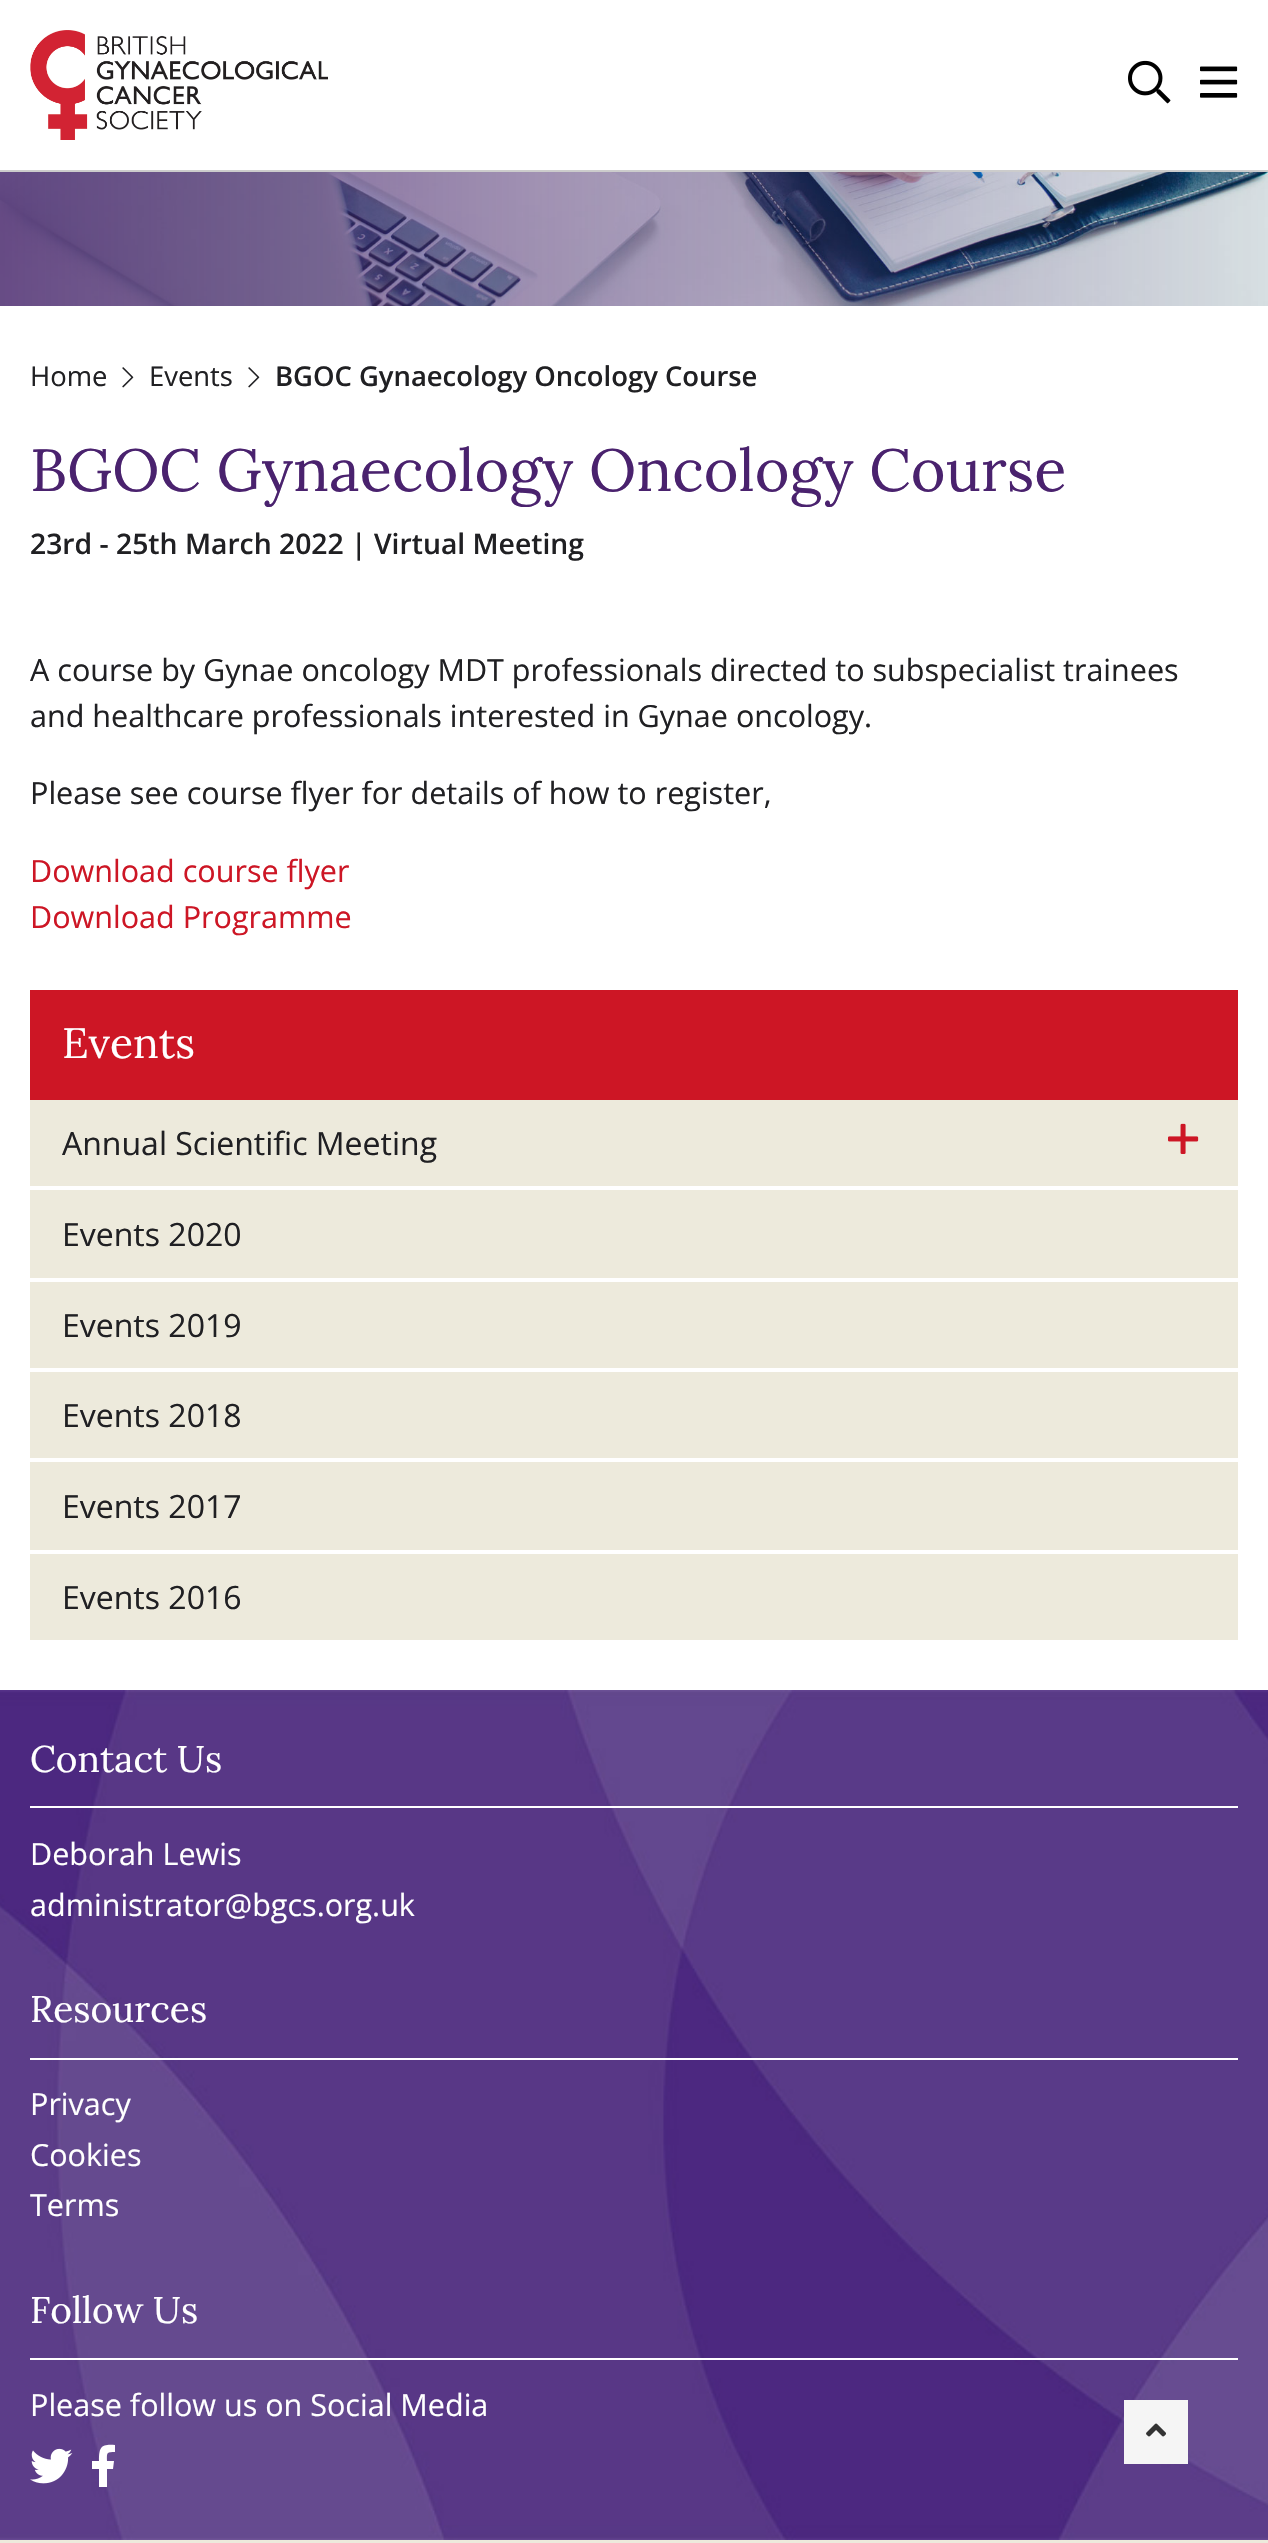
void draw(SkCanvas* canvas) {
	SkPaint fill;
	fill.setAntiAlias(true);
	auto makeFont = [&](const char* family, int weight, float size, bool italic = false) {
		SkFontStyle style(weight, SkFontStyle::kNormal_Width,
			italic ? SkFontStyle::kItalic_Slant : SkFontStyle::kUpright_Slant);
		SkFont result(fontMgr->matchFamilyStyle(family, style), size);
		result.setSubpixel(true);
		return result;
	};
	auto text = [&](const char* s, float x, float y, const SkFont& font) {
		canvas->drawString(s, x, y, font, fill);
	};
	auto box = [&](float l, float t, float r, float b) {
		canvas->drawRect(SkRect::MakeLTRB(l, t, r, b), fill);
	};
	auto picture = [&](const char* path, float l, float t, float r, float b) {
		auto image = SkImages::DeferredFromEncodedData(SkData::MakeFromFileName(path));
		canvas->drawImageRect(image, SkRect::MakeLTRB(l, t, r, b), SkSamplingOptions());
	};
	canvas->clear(0xFFFFFFFF);
	fill.setColor(0xFFCCCCCC);
	box(0, 170, 1268, 172);
	picture("image0.png", 30, 30, 328, 140);
	picture("image1.png", 1128, 60, 1171, 104);
	picture("image2.png", 1200, 66, 1238, 98);
	picture("image3.png", 0, 172, 1268, 306);
	picture("image4.png", 122, 367, 134, 388);
	picture("image4.png", 248, 367, 260, 388);
	fill.setColor(0xFFEDEADC);
	box(30, 1100, 1238, 1640);
	fill.setColor(0xFFCD1625);
	box(30, 990, 1238, 1100);
	fill.setColor(0xFFFFFFFF);
	box(30, 1186, 1238, 1190);
	picture("image5.png", 1168, 1123, 1199, 1154);
	box(30, 1278, 1238, 1282);
	box(30, 1368, 1238, 1372);
	box(30, 1458, 1238, 1462);
	box(30, 1550, 1238, 1554);
	picture("image6.png", 0, 1690, 1268, 2540);
	box(30, 1806, 1238, 1808);
	box(30, 2058, 1238, 2060);
	box(30, 2358, 1238, 2360);
	picture("image7.png", 30, 2448, 73, 2484);
	canvas->drawPath(SkPathBuilder().moveTo(113, 2469).lineTo(107, 2469).lineTo(107, 2487).lineTo(99, 2487).lineTo(99, 2469).lineTo(92, 2469).lineTo(92, 2461).lineTo(99, 2461).cubicTo(99, 2447, 101, 2444, 115, 2445).lineTo(115, 2452).cubicTo(106, 2452, 107, 2453, 107, 2461).lineTo(114, 2461).close().detach(), fill);
	fill.setColor(0xFFEDEADC);
	box(0, 2540, 1268, 2543);
	fill.setColor(0xFFF5F5F5);
	box(1124, 2400, 1188, 2464);
	picture("image8.png", 1146, 2423, 1166, 2437);
	auto font1 = makeFont("Open Sans", 400, 27.4f);
	fill.setColor(0xFF202023);
	text("Home", 30, 386, font1);
	text("Events", 149, 386, font1);
	auto font2 = makeFont("Open Sans", 600, 27.4f);
	text("BGOC Gynaecology Oncology Course", 275, 386, font2);
	auto font3 = makeFont("Lora", 400, 59.4f);
	fill.setColor(0xFF4A226E);
	text("BGOC Gynaecology Oncology Course", 30, 491, font3);
	auto font4 = makeFont("Open Sans", 600, 28.3f);
	fill.setColor(0xFF202023);
	text("23rd - 25th March 2022 | Virtual Meeting", 30, 554, font4);
	auto font5 = makeFont("Open Sans", 400, 30.55f);
	text("A course by Gynae oncology MDT professionals directed to subspecialist trainees", 30, 681, font5);
	text("and healthcare professionals interested in Gynae oncology.", 30, 727, font5);
	text("Please see course flyer for details of how to register,", 30, 804, font5);
	fill.setColor(0xFFCD1625);
	text("Download course flyer", 30, 882, font5);
	text("Download Programme", 30, 928, font5);
	auto font6 = makeFont("Lora", 400, 42.5f);
	fill.setColor(0xFFFFFFFF);
	text("Events", 62, 1058, font6);
	auto font7 = makeFont("Open Sans", 400, 32);
	fill.setColor(0xFF202023);
	text("Annual Scientific Meeting", 62, 1155, font7);
	text("Events 2020", 62, 1246, font7);
	text("Events 2019", 62, 1337, font7);
	text("Events 2018", 62, 1427, font7);
	text("Events 2017", 62, 1518, font7);
	text("Events 2016", 62, 1609, font7);
	auto font8 = makeFont("Lora", 400, 37);
	fill.setColor(0xFFFFFFFF);
	text("Contact Us", 30, 1772, font8);
	text("Deborah Lewis", 30, 1865, font5);
	text("administrator@bgcs.org.uk", 30, 1916, font5);
	text("Resources", 30, 2022, font8);
	text("Privacy", 30, 2115, font5);
	text("Cookies", 30, 2166, font5);
	text("Terms", 30, 2216, font5);
	text("Follow Us", 30, 2323, font8);
	text("Please follow us on Social Media", 30, 2416, font5);
}
